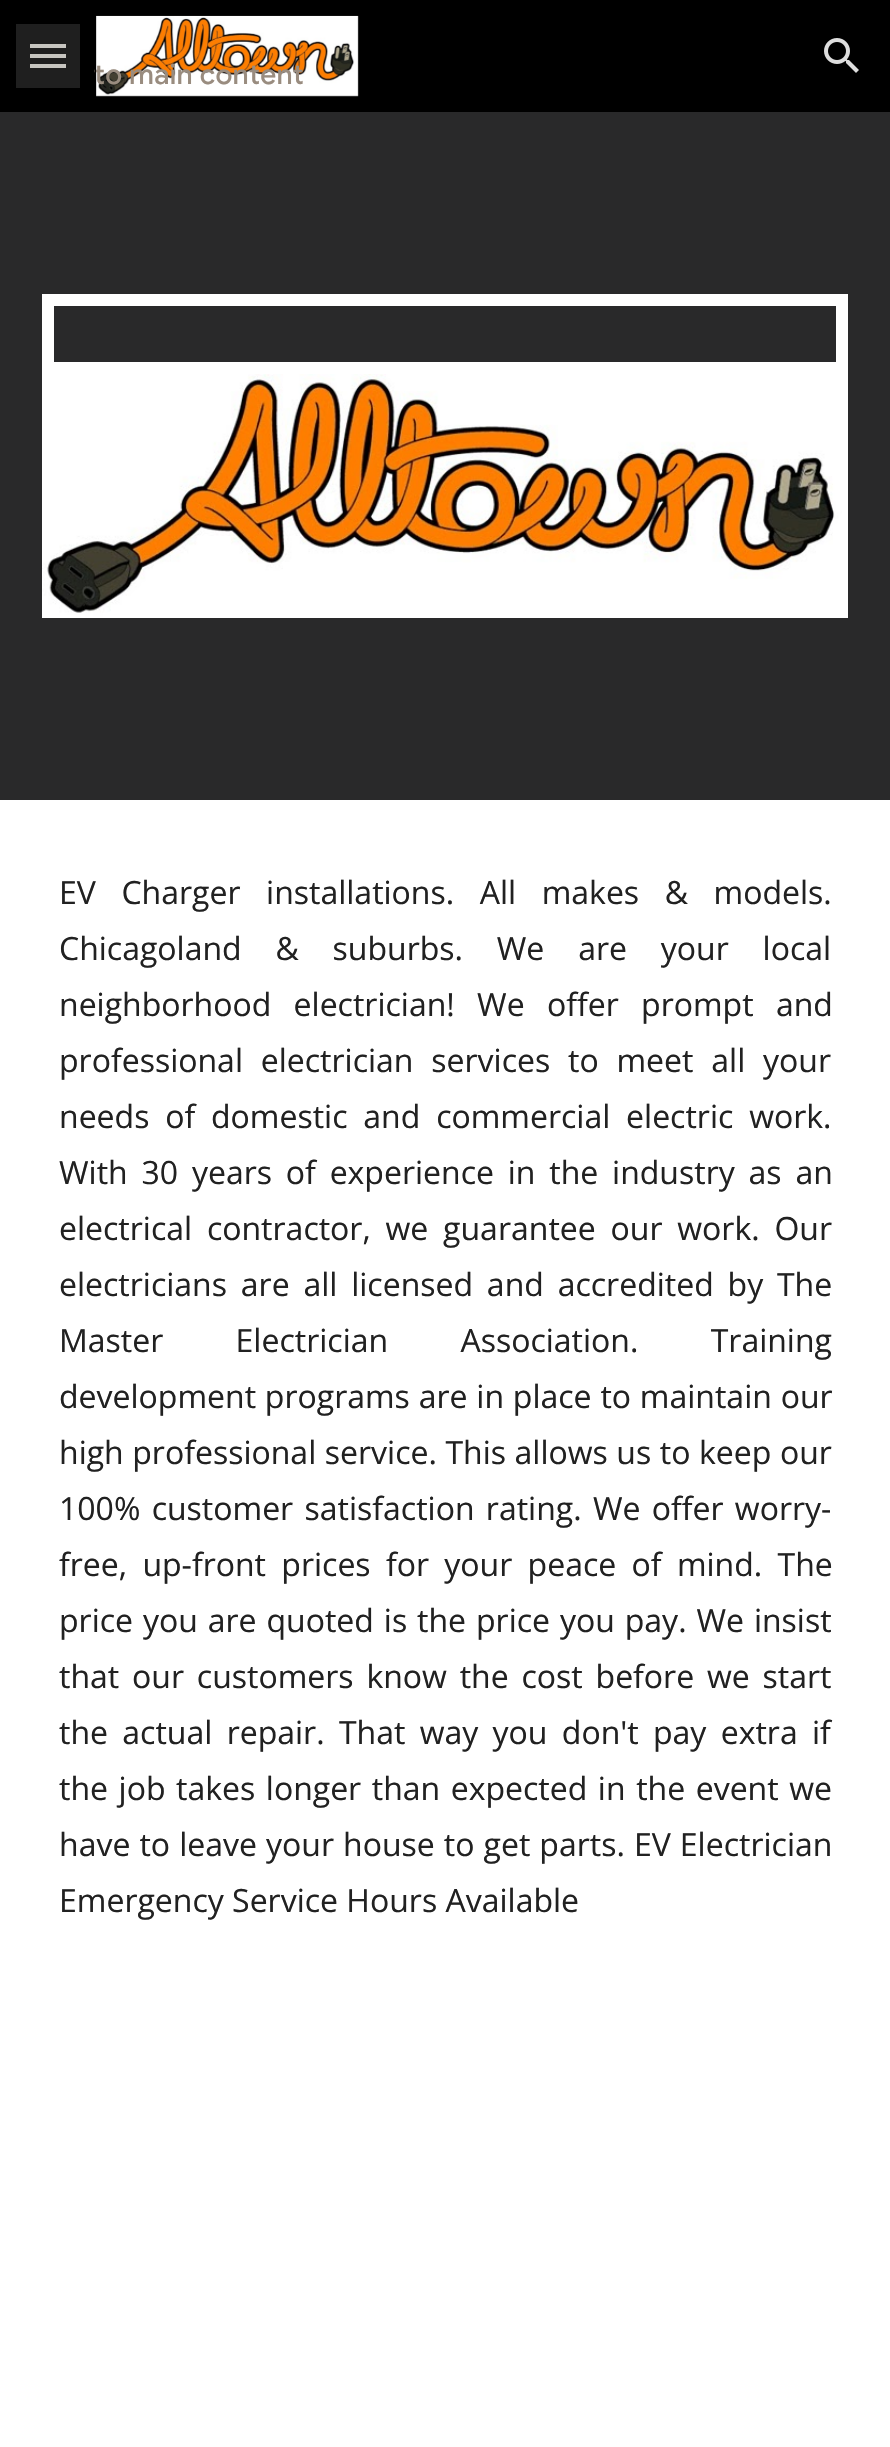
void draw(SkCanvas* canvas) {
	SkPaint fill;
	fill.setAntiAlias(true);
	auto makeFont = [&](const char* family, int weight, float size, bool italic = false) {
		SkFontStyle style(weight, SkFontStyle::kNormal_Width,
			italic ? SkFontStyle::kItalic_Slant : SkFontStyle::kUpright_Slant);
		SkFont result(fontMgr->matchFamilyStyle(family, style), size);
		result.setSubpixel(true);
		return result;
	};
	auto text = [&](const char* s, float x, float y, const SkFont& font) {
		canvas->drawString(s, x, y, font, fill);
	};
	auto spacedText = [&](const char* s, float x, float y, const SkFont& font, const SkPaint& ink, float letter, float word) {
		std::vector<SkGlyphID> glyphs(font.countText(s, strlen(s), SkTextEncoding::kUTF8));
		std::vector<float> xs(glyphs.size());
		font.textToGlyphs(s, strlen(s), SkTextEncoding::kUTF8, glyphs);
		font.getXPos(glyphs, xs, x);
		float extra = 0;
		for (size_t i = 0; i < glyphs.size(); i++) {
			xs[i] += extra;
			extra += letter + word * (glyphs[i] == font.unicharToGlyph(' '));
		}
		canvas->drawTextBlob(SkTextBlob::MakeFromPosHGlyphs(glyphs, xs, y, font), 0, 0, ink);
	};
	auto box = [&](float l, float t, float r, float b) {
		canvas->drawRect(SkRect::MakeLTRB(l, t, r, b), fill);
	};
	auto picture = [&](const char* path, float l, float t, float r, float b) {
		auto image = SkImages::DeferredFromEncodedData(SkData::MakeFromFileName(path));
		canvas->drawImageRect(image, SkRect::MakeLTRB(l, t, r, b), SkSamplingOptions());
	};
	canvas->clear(0xFFFFFFFF);
	fill.setColor(0xFF000000);
	box(0, 0, 890, 112);
	picture("image0.png", 96, 15, 359, 97);
	fill.setColor(0xFFC0BDB8);
	box(30, 44, 66, 48);
	box(30, 54, 66, 58);
	box(30, 64, 66, 68);
	fill.setColor(0x1FFFFFFF);
	box(16, 24, 80, 88);
	picture("image1.png", 824, 38, 859, 73);
	fill.setColor(0xFF29292A);
	box(0, 112, 890, 800);
	fill.setStyle(SkPaint::kStroke_Style);
	fill.setStrokeWidth(12);
	fill.setColor(0xFFFFFFFF);
	canvas->drawRect(SkRect::MakeLTRB(48, 300, 842, 368), fill);
	picture("image2.png", 42, 374, 848, 618);
	auto font1 = makeFont("Google Sans", 500, 28);
	fill.setStyle(SkPaint::kFill_Style);
	fill.setColor(0xFF998C7F);
	spacedText("to main content", 94, 84, font1, fill, 0.25f, 0);
	fill.setColor(0xFF000000);
	box(95, 69, 96, 73);
	auto font2 = makeFont("Open Sans", 400, 32);
	fill.setColor(0xFF212121);
	spacedText("EV Charger installations. All makes & models.", 59, 904, font2, fill, 0, 17.25f);
	spacedText("Chicagoland & suburbs. We are your local", 59, 960, font2, fill, 0, 25.5f);
	spacedText("neighborhood electrician! We offer prompt and", 59, 1016, font2, fill, 0, 14);
	spacedText("professional electrician services to meet all your", 59, 1072, font2, fill, 0, 9.5f);
	spacedText("needs of domestic and commercial electric work.", 59, 1128, font2, fill, 0, 7.5f);
	spacedText("With 30 years of experience in the industry as an", 59, 1184, font2, fill, 0, 5.5f);
	spacedText("electrical contractor, we guarantee our work. Our", 59, 1240, font2, fill, 0, 6.5f);
	spacedText("electricians are all licensed and accredited by The", 59, 1296, font2, fill, 0, 5.5f);
	spacedText("Master Electrician Association. Training", 59, 1352, font2, fill, 0, 64);
	spacedText("development programs are in place to maintain our", 59, 1408, font2, fill, 0, 0.5f);
	spacedText("high professional service. This allows us to keep our", 59, 1464, font2, fill, 0, 0.25f);
	spacedText("100% customer satisfaction rating. We offer worry-", 59, 1520, font2, fill, 0, 3);
	spacedText("free, up-front prices for your peace of mind. The", 59, 1576, font2, fill, 0, 7);
	spacedText("price you are quoted is the price you pay. We insist", 59, 1632, font2, fill, 0, 1.6f);
	spacedText("that our customers know the cost before we start", 59, 1688, font2, fill, 0, 4.5f);
	spacedText("the actual repair. That way you don't pay extra if", 59, 1744, font2, fill, 0, 6);
	spacedText("the job takes longer than expected in the event we", 59, 1800, font2, fill, 0, 2.25f);
	spacedText("have to leave your house to get parts. EV Electrician", 59, 1856, font2, fill, 0, 0.75f);
	text("Emergency Service Hours Available", 59, 1912, font2);
}
